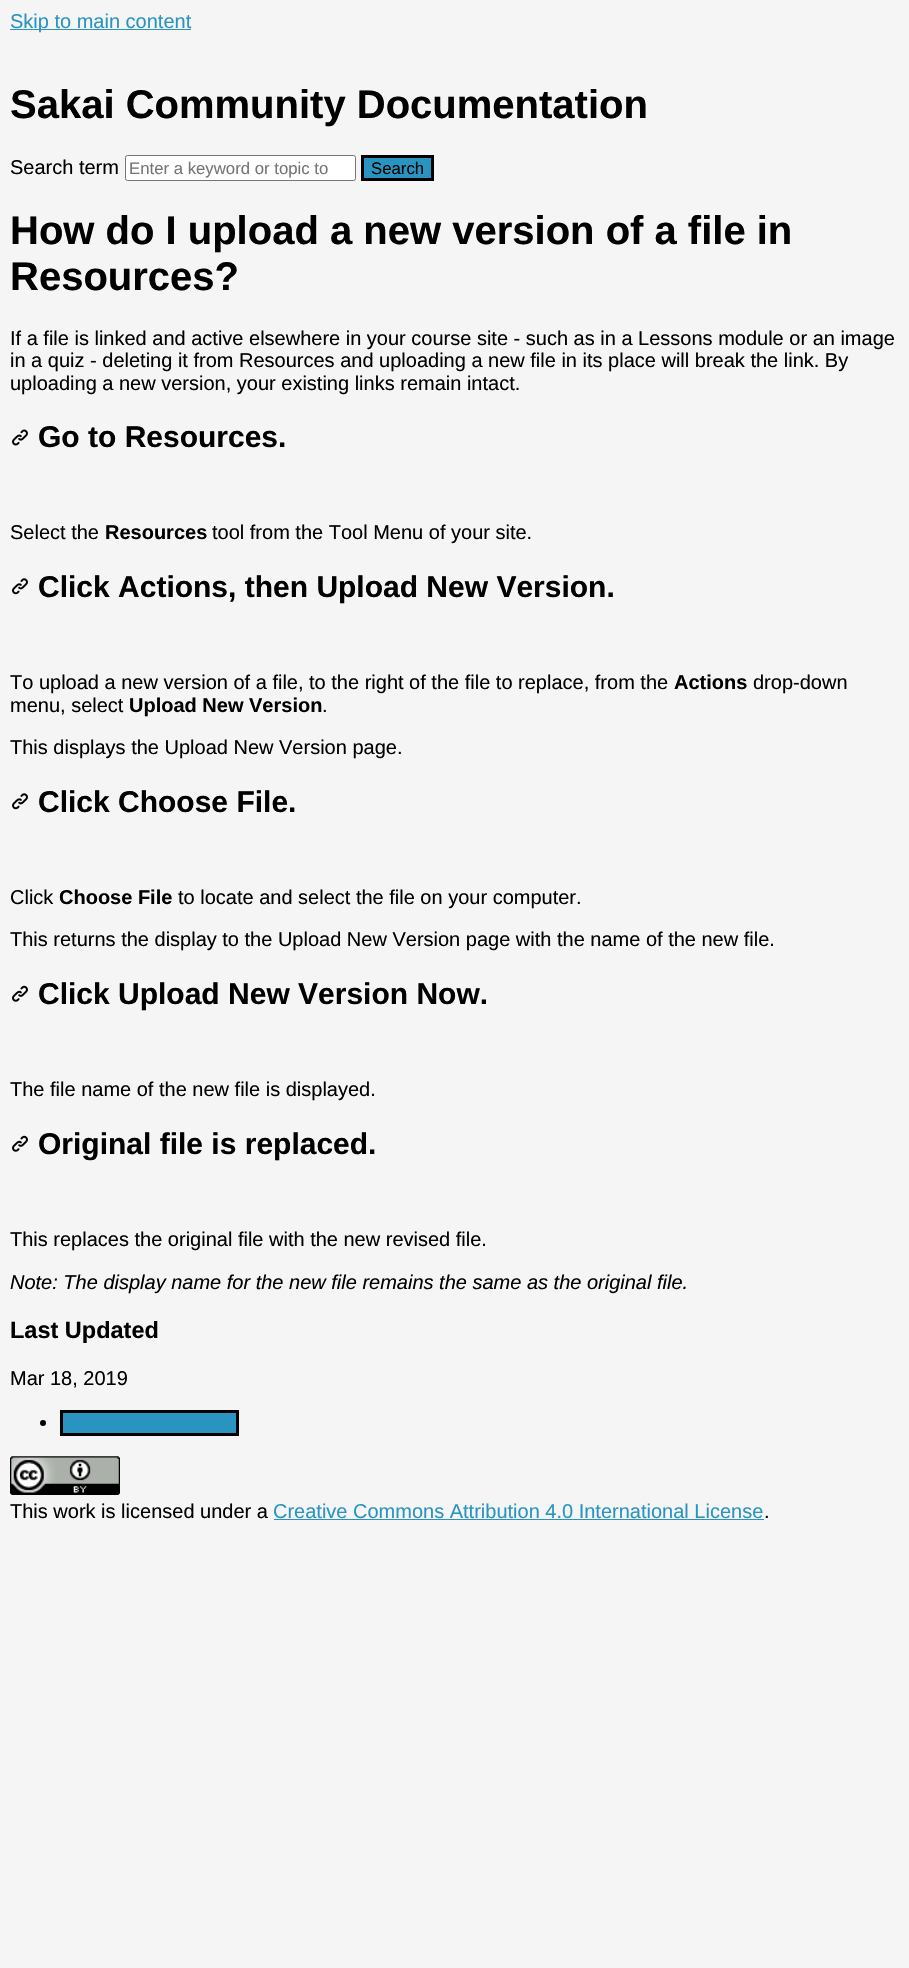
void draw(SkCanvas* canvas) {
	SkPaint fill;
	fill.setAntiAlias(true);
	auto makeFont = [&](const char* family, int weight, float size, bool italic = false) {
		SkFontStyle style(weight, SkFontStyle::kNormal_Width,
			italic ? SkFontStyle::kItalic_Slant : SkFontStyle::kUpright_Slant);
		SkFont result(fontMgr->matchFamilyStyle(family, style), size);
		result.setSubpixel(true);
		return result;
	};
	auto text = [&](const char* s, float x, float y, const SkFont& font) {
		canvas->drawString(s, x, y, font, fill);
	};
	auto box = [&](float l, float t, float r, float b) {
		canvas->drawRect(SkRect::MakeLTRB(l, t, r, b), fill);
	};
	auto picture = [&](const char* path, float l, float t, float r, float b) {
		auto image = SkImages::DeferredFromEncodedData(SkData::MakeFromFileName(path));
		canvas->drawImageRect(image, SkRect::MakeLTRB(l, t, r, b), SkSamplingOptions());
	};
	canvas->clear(0xFFF5F5F5);
	fill.setColor(0xFF2A94C0);
	box(10, 29, 191, 30);
	fill.setColor(0xFFFFFFFF);
	canvas->drawRoundRect(SkRect::MakeLTRB(125.5f, 155.5f, 355.5f, 180.5f), 2, 2, fill);
	fill.setStyle(SkPaint::kStroke_Style);
	fill.setStrokeWidth(1);
	fill.setColor(0xFF767676);
	canvas->drawRoundRect(SkRect::MakeLTRB(125.5f, 155.5f, 355.5f, 180.5f), 2, 2, fill);
	fill.setStyle(SkPaint::kFill_Style);
	fill.setColor(0xFF2A94C0);
	canvas->drawRect(SkRect::MakeLTRB(362.5f, 156.5f, 432.5f, 179.5f), fill);
	fill.setStyle(SkPaint::kStroke_Style);
	fill.setStrokeWidth(3);
	fill.setColor(0xFF000000);
	canvas->drawRect(SkRect::MakeLTRB(362.5f, 156.5f, 432.5f, 179.5f), fill);
	picture("image0.png", 12, 429, 28, 446);
	picture("image1.png", 12, 578, 28, 595);
	picture("image1.png", 12, 793, 28, 810);
	picture("image2.png", 12, 985, 28, 1002);
	picture("image2.png", 12, 1135, 28, 1152);
	fill.setStyle(SkPaint::kFill_Style);
	canvas->drawCircle(43, 1423, 3, fill);
	fill.setColor(0xFF2A94C0);
	canvas->drawRect(SkRect::MakeLTRB(61.5f, 1411.5f, 237.5f, 1434.5f), fill);
	fill.setStyle(SkPaint::kStroke_Style);
	fill.setColor(0xFF000000);
	canvas->drawRect(SkRect::MakeLTRB(61.5f, 1411.5f, 237.5f, 1434.5f), fill);
	picture("image3.png", 10, 1456, 120, 1495);
	fill.setStyle(SkPaint::kFill_Style);
	fill.setColor(0xFF2A94C0);
	box(274, 1519, 764, 1520);
	auto font1 = makeFont("Liberation Sans", 400, 20);
	text("Skip to main content", 10, 28, font1);
	auto font2 = makeFont("Liberation Sans", 700, 40);
	fill.setColor(0xFF000000);
	text("Sakai Community Documentation", 10, 118, font2);
	text("Search term", 10, 174, font1);
	auto font3 = makeFont("Liberation Sans", 400, 16.75f);
	fill.setColor(0xFF757575);
	text("Enter a keyword or topic to", 129, 174, font3);
	fill.setColor(0xFF000000);
	text("Search", 371, 174, font3);
	text("How do I upload a new version of a file in", 10, 244, font2);
	text("Resources?", 10, 290, font2);
	text("If a file is linked and active elsewhere in your course site - such as in a Lessons module or an image", 10, 345, font1);
	text("in a quiz - deleting it from Resources and uploading a new file in its place will break the link. By", 10, 367, font1);
	text("uploading a new version, your existing links remain intact.", 10, 390, font1);
	auto font4 = makeFont("Liberation Sans", 700, 30);
	text("Go to Resources.", 38, 447, font4);
	text("Select the", 10, 539, font1);
	auto font5 = makeFont("Liberation Sans", 700, 20);
	text("Resources", 105, 539, font5);
	text("tool from the Tool Menu of your site.", 212, 539, font1);
	text("Click Actions, then Upload New Version.", 38, 597, font4);
	text("To upload a new version of a file, to the right of the file to replace, from the", 10, 689, font1);
	text("Actions", 674, 689, font5);
	text("drop-down", 753, 689, font1);
	text("menu, select", 10, 712, font1);
	text("Upload New Version", 129, 712, font5);
	text(".", 322, 712, font1);
	text("This displays the Upload New Version page.", 10, 754, font1);
	text("Click Choose File.", 38, 812, font4);
	text("Click", 10, 904, font1);
	text("Choose File", 59, 904, font5);
	text("to locate and select the file on your computer.", 178, 904, font1);
	text("This returns the display to the Upload New Version page with the name of the new file.", 10, 946, font1);
	text("Click Upload New Version Now.", 38, 1004, font4);
	text("The file name of the new file is displayed.", 10, 1096, font1);
	text("Original file is replaced.", 38, 1154, font4);
	text("This replaces the original file with the new revised file.", 10, 1246, font1);
	auto font6 = makeFont("Liberation Sans", 400, 20, true);
	text("Note: The display name for the new file remains the same as the original file.", 10, 1289, font6);
	auto font7 = makeFont("Liberation Sans", 700, 23.5f);
	text("Last Updated", 10, 1338, font7);
	text("Mar 18, 2019", 10, 1385, font1);
	text("This work is licensed under a", 10, 1518, font1);
	fill.setColor(0xFF2A94C0);
	text("Creative Commons Attribution 4.0 International License", 273, 1518, font1);
	fill.setColor(0xFF000000);
	text(".", 764, 1518, font1);
}
